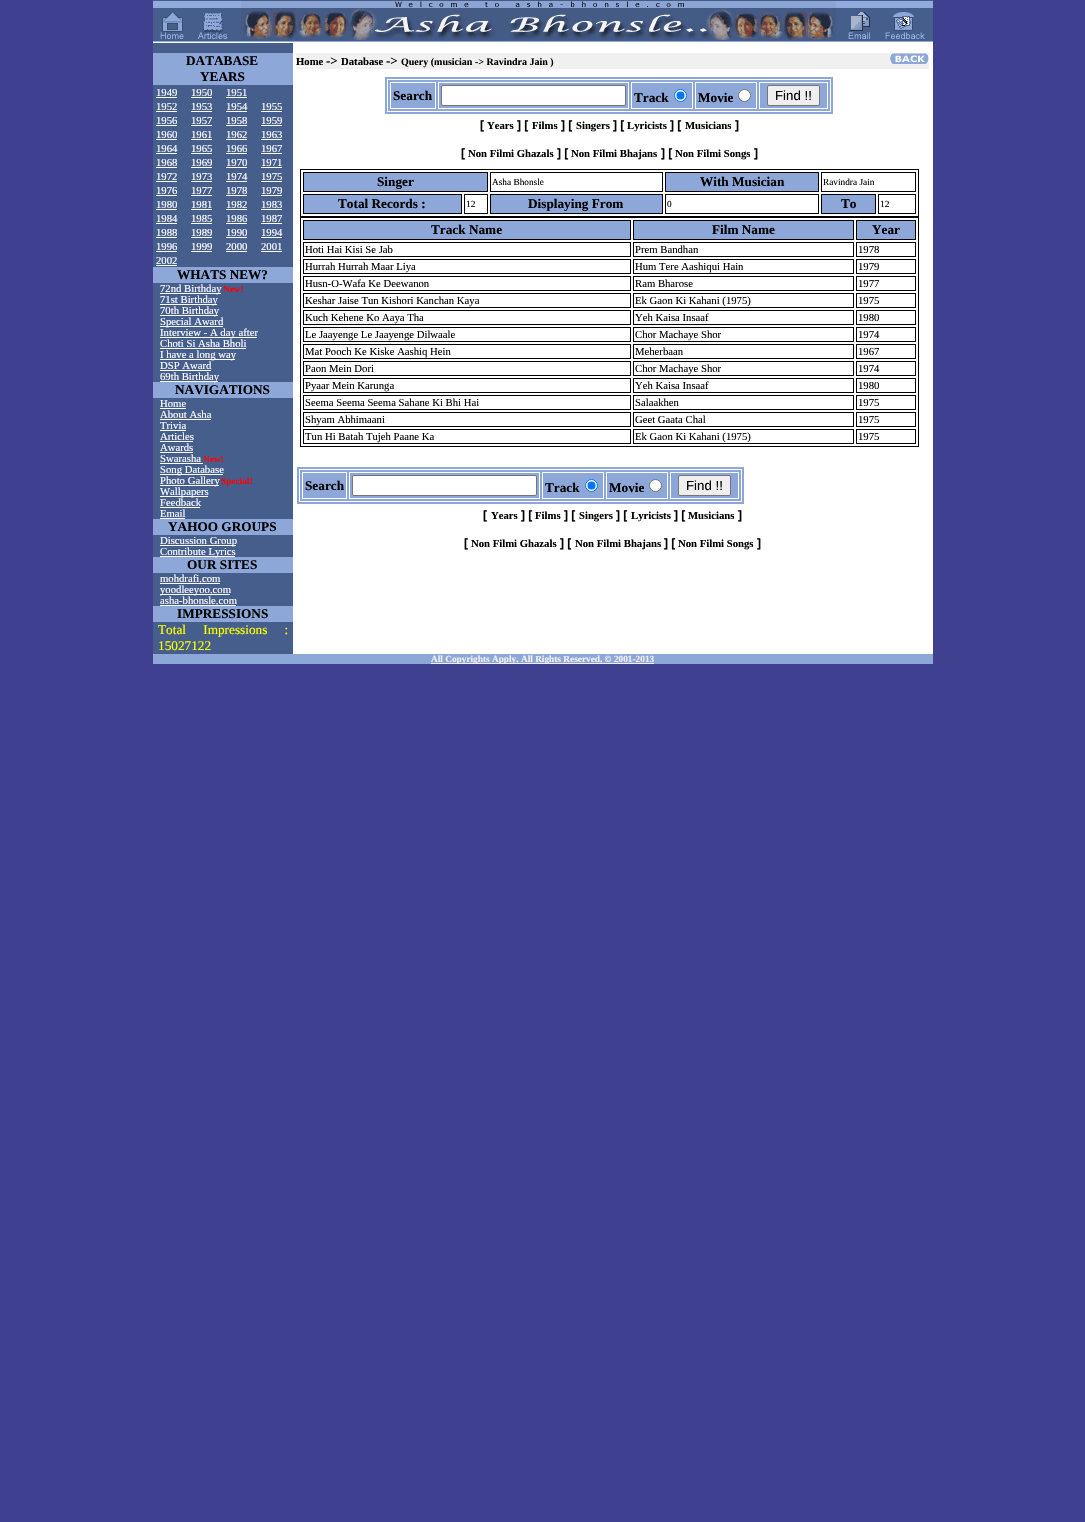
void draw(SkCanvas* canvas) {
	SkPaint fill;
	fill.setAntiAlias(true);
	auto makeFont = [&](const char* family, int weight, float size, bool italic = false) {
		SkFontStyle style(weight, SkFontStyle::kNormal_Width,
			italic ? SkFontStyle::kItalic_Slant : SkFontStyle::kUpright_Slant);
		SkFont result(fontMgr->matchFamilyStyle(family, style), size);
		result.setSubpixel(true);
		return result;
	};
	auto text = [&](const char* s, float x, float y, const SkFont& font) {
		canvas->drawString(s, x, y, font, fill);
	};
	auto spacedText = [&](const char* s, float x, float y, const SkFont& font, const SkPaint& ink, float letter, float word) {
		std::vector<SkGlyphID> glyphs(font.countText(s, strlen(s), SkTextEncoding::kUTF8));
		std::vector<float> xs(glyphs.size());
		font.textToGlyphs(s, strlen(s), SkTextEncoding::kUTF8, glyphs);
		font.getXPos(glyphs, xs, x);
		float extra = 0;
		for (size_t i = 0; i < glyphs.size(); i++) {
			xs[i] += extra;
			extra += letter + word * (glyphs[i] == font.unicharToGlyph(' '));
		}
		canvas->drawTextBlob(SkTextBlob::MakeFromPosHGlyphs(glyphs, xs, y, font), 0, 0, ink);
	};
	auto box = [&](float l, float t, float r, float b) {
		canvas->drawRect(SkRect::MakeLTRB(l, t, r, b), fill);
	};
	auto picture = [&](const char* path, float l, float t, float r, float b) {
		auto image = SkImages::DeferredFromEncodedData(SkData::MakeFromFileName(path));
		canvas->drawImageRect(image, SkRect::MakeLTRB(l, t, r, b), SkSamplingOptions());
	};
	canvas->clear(0xFF404090);
	fill.setColor(0xFF465E8C);
	box(153, 0, 933, 1);
	picture("image0.png", 153, 1, 933, 42);
	picture("image1.png", 160, 11, 184, 39);
	picture("image2.png", 198, 13, 228, 39);
	picture("image3.png", 241, 0, 836, 40);
	picture("image4.png", 848, 11, 870, 39);
	picture("image5.png", 885, 12, 925, 39);
	fill.setColor(0xFFFFFFFF);
	box(153, 42, 933, 43);
	fill.setColor(0xFF465E8C);
	box(153, 43, 293, 53);
	fill.setColor(0xFFFFFFFF);
	box(293, 43, 933, 654);
	fill.setColor(0xFF465E8C);
	box(153, 85, 293, 654);
	fill.setColor(0xFF8DA7D8);
	box(153, 53, 293, 85);
	fill.setColor(0xFFFFFFFF);
	box(156, 97, 177, 98);
	box(191, 97, 212, 98);
	box(226, 97, 247, 98);
	box(156, 111, 177, 112);
	box(191, 111, 212, 112);
	box(226, 111, 247, 112);
	box(261, 111, 282, 112);
	box(156, 125, 177, 126);
	box(191, 125, 212, 126);
	box(226, 125, 247, 126);
	box(261, 125, 282, 126);
	box(156, 139, 177, 140);
	box(191, 139, 212, 140);
	box(226, 139, 247, 140);
	box(261, 139, 282, 140);
	box(156, 153, 177, 154);
	box(191, 153, 212, 154);
	box(226, 153, 247, 154);
	box(261, 153, 282, 154);
	box(156, 167, 177, 168);
	box(191, 167, 212, 168);
	box(226, 167, 247, 168);
	box(261, 167, 282, 168);
	box(156, 181, 177, 182);
	box(191, 181, 212, 182);
	box(226, 181, 247, 182);
	box(261, 181, 282, 182);
	box(156, 195, 177, 196);
	box(191, 195, 212, 196);
	box(226, 195, 247, 196);
	box(261, 195, 282, 196);
	box(156, 209, 177, 210);
	box(191, 209, 212, 210);
	box(226, 209, 247, 210);
	box(261, 209, 282, 210);
	box(156, 223, 177, 224);
	box(191, 223, 212, 224);
	box(226, 223, 247, 224);
	box(261, 223, 282, 224);
	box(156, 237, 177, 238);
	box(191, 237, 212, 238);
	box(226, 237, 247, 238);
	box(261, 237, 282, 238);
	box(156, 251, 177, 252);
	box(191, 251, 212, 252);
	box(226, 251, 247, 252);
	box(261, 251, 282, 252);
	box(156, 265, 177, 266);
	fill.setColor(0xFF8DA7D8);
	box(153, 267, 293, 283);
	fill.setColor(0xFFFFFFFF);
	box(160, 293, 221, 294);
	box(160, 304, 217, 305);
	box(160, 315, 218, 316);
	box(160, 326, 223, 327);
	box(160, 337, 257, 338);
	box(160, 348, 246, 349);
	box(160, 359, 235, 360);
	box(160, 370, 211, 371);
	box(160, 381, 218, 382);
	fill.setColor(0xFF8DA7D8);
	box(153, 382, 293, 398);
	fill.setColor(0xFFFFFFFF);
	box(160, 408, 186, 409);
	box(160, 419, 211, 420);
	box(160, 430, 186, 431);
	box(160, 441, 193, 442);
	box(160, 452, 193, 453);
	box(160, 463, 203, 464);
	box(160, 474, 223, 475);
	box(160, 485, 219, 486);
	box(160, 496, 208, 497);
	box(160, 507, 200, 508);
	box(160, 518, 185, 519);
	fill.setColor(0xFF8DA7D8);
	box(153, 519, 293, 535);
	fill.setColor(0xFFFFFFFF);
	box(160, 545, 236, 546);
	box(160, 556, 235, 557);
	fill.setColor(0xFF8DA7D8);
	box(153, 557, 293, 573);
	fill.setColor(0xFFFFFFFF);
	box(160, 583, 220, 584);
	box(160, 594, 230, 595);
	box(160, 605, 236, 606);
	fill.setColor(0xFF8DA7D8);
	box(153, 606, 293, 622);
	fill.setColor(0xFFF0F0F0);
	box(296, 53, 929, 69);
	fill.setColor(0xFFFFFFFF);
	box(296, 66, 323, 67);
	box(341, 66, 383, 67);
	picture("image6.png", 890, 53, 929, 64);
	fill.setColor(0xFF8DA7D8);
	box(385, 77, 833, 114);
	fill.setStyle(SkPaint::kStroke_Style);
	fill.setStrokeWidth(1);
	fill.setColor(0xFFFFFFFF);
	canvas->drawRect(SkRect::MakeLTRB(387.5f, 79.5f, 830.5f, 111.5f), fill);
	canvas->drawRect(SkRect::MakeLTRB(390.5f, 82.5f, 435.5f, 108.5f), fill);
	canvas->drawRect(SkRect::MakeLTRB(438.5f, 82.5f, 628.5f, 108.5f), fill);
	fill.setStyle(SkPaint::kFill_Style);
	canvas->drawRoundRect(SkRect::MakeLTRB(441.5f, 85.5f, 625.5f, 105.5f), 1.5f, 1.5f, fill);
	fill.setStyle(SkPaint::kStroke_Style);
	fill.setColor(0xFF767676);
	canvas->drawRoundRect(SkRect::MakeLTRB(441.5f, 85.5f, 625.5f, 105.5f), 1.5f, 1.5f, fill);
	fill.setColor(0xFFFFFFFF);
	canvas->drawRect(SkRect::MakeLTRB(631.5f, 82.5f, 692.5f, 108.5f), fill);
	fill.setStyle(SkPaint::kFill_Style);
	canvas->drawCircle(680.5f, 95.5f, 6, fill);
	fill.setStyle(SkPaint::kStroke_Style);
	fill.setColor(0xFF0075FF);
	canvas->drawCircle(680.5f, 95.5f, 6, fill);
	fill.setStyle(SkPaint::kFill_Style);
	canvas->drawCircle(680.5f, 95.5f, 4, fill);
	fill.setStyle(SkPaint::kStroke_Style);
	fill.setColor(0xFFFFFFFF);
	canvas->drawRect(SkRect::MakeLTRB(695.5f, 82.5f, 756.5f, 108.5f), fill);
	fill.setStyle(SkPaint::kFill_Style);
	canvas->drawCircle(744.5f, 95.5f, 6, fill);
	fill.setStyle(SkPaint::kStroke_Style);
	fill.setColor(0xFF767676);
	canvas->drawCircle(744.5f, 95.5f, 6, fill);
	fill.setColor(0xFFFFFFFF);
	canvas->drawRect(SkRect::MakeLTRB(759.5f, 82.5f, 827.5f, 108.5f), fill);
	fill.setStyle(SkPaint::kFill_Style);
	fill.setColor(0xFFEFEFEF);
	canvas->drawRoundRect(SkRect::MakeLTRB(767.5f, 85.5f, 819.5f, 105.5f), 1.5f, 1.5f, fill);
	fill.setStyle(SkPaint::kStroke_Style);
	fill.setColor(0xFF767676);
	canvas->drawRoundRect(SkRect::MakeLTRB(767.5f, 85.5f, 819.5f, 105.5f), 1.5f, 1.5f, fill);
	fill.setColor(0xFF000000);
	canvas->drawRect(SkRect::MakeLTRB(300.5f, 169.5f, 918.5f, 216.5f), fill);
	fill.setStyle(SkPaint::kFill_Style);
	fill.setColor(0xFF8DA7D8);
	canvas->drawRect(SkRect::MakeLTRB(303.5f, 172.5f, 487.5f, 191.5f), fill);
	fill.setStyle(SkPaint::kStroke_Style);
	fill.setColor(0xFF000000);
	canvas->drawRect(SkRect::MakeLTRB(303.5f, 172.5f, 487.5f, 191.5f), fill);
	canvas->drawRect(SkRect::MakeLTRB(490.5f, 172.5f, 662.5f, 191.5f), fill);
	fill.setStyle(SkPaint::kFill_Style);
	fill.setColor(0xFF8DA7D8);
	canvas->drawRect(SkRect::MakeLTRB(665.5f, 172.5f, 818.5f, 191.5f), fill);
	fill.setStyle(SkPaint::kStroke_Style);
	fill.setColor(0xFF000000);
	canvas->drawRect(SkRect::MakeLTRB(665.5f, 172.5f, 818.5f, 191.5f), fill);
	canvas->drawRect(SkRect::MakeLTRB(821.5f, 172.5f, 915.5f, 191.5f), fill);
	fill.setStyle(SkPaint::kFill_Style);
	fill.setColor(0xFF8DA7D8);
	canvas->drawRect(SkRect::MakeLTRB(303.5f, 194.5f, 461.5f, 213.5f), fill);
	fill.setStyle(SkPaint::kStroke_Style);
	fill.setColor(0xFF000000);
	canvas->drawRect(SkRect::MakeLTRB(303.5f, 194.5f, 461.5f, 213.5f), fill);
	canvas->drawRect(SkRect::MakeLTRB(464.5f, 194.5f, 487.5f, 213.5f), fill);
	fill.setStyle(SkPaint::kFill_Style);
	fill.setColor(0xFF8DA7D8);
	canvas->drawRect(SkRect::MakeLTRB(490.5f, 194.5f, 662.5f, 213.5f), fill);
	fill.setStyle(SkPaint::kStroke_Style);
	fill.setColor(0xFF000000);
	canvas->drawRect(SkRect::MakeLTRB(490.5f, 194.5f, 662.5f, 213.5f), fill);
	canvas->drawRect(SkRect::MakeLTRB(665.5f, 194.5f, 818.5f, 213.5f), fill);
	fill.setStyle(SkPaint::kFill_Style);
	fill.setColor(0xFF8DA7D8);
	canvas->drawRect(SkRect::MakeLTRB(821.5f, 194.5f, 875.5f, 213.5f), fill);
	fill.setStyle(SkPaint::kStroke_Style);
	fill.setColor(0xFF000000);
	canvas->drawRect(SkRect::MakeLTRB(821.5f, 194.5f, 875.5f, 213.5f), fill);
	canvas->drawRect(SkRect::MakeLTRB(878.5f, 194.5f, 915.5f, 213.5f), fill);
	canvas->drawRect(SkRect::MakeLTRB(300.5f, 217.5f, 918.5f, 446.5f), fill);
	fill.setStyle(SkPaint::kFill_Style);
	fill.setColor(0xFF8DA7D8);
	canvas->drawRect(SkRect::MakeLTRB(303.5f, 220.5f, 630.5f, 239.5f), fill);
	fill.setStyle(SkPaint::kStroke_Style);
	fill.setColor(0xFF000000);
	canvas->drawRect(SkRect::MakeLTRB(303.5f, 220.5f, 630.5f, 239.5f), fill);
	fill.setStyle(SkPaint::kFill_Style);
	fill.setColor(0xFF8DA7D8);
	canvas->drawRect(SkRect::MakeLTRB(633.5f, 220.5f, 853.5f, 239.5f), fill);
	fill.setStyle(SkPaint::kStroke_Style);
	fill.setColor(0xFF000000);
	canvas->drawRect(SkRect::MakeLTRB(633.5f, 220.5f, 853.5f, 239.5f), fill);
	fill.setStyle(SkPaint::kFill_Style);
	fill.setColor(0xFF8DA7D8);
	canvas->drawRect(SkRect::MakeLTRB(856.5f, 220.5f, 915.5f, 239.5f), fill);
	fill.setStyle(SkPaint::kStroke_Style);
	fill.setColor(0xFF000000);
	canvas->drawRect(SkRect::MakeLTRB(856.5f, 220.5f, 915.5f, 239.5f), fill);
	canvas->drawRect(SkRect::MakeLTRB(303.5f, 242.5f, 630.5f, 256.5f), fill);
	canvas->drawRect(SkRect::MakeLTRB(633.5f, 242.5f, 853.5f, 256.5f), fill);
	canvas->drawRect(SkRect::MakeLTRB(856.5f, 242.5f, 915.5f, 256.5f), fill);
	canvas->drawRect(SkRect::MakeLTRB(303.5f, 259.5f, 630.5f, 273.5f), fill);
	canvas->drawRect(SkRect::MakeLTRB(633.5f, 259.5f, 853.5f, 273.5f), fill);
	canvas->drawRect(SkRect::MakeLTRB(856.5f, 259.5f, 915.5f, 273.5f), fill);
	canvas->drawRect(SkRect::MakeLTRB(303.5f, 276.5f, 630.5f, 290.5f), fill);
	canvas->drawRect(SkRect::MakeLTRB(633.5f, 276.5f, 853.5f, 290.5f), fill);
	canvas->drawRect(SkRect::MakeLTRB(856.5f, 276.5f, 915.5f, 290.5f), fill);
	canvas->drawRect(SkRect::MakeLTRB(303.5f, 293.5f, 630.5f, 307.5f), fill);
	canvas->drawRect(SkRect::MakeLTRB(633.5f, 293.5f, 853.5f, 307.5f), fill);
	canvas->drawRect(SkRect::MakeLTRB(856.5f, 293.5f, 915.5f, 307.5f), fill);
	canvas->drawRect(SkRect::MakeLTRB(303.5f, 310.5f, 630.5f, 324.5f), fill);
	canvas->drawRect(SkRect::MakeLTRB(633.5f, 310.5f, 853.5f, 324.5f), fill);
	canvas->drawRect(SkRect::MakeLTRB(856.5f, 310.5f, 915.5f, 324.5f), fill);
	canvas->drawRect(SkRect::MakeLTRB(303.5f, 327.5f, 630.5f, 341.5f), fill);
	canvas->drawRect(SkRect::MakeLTRB(633.5f, 327.5f, 853.5f, 341.5f), fill);
	canvas->drawRect(SkRect::MakeLTRB(856.5f, 327.5f, 915.5f, 341.5f), fill);
	canvas->drawRect(SkRect::MakeLTRB(303.5f, 344.5f, 630.5f, 358.5f), fill);
	canvas->drawRect(SkRect::MakeLTRB(633.5f, 344.5f, 853.5f, 358.5f), fill);
	canvas->drawRect(SkRect::MakeLTRB(856.5f, 344.5f, 915.5f, 358.5f), fill);
	canvas->drawRect(SkRect::MakeLTRB(303.5f, 361.5f, 630.5f, 375.5f), fill);
	canvas->drawRect(SkRect::MakeLTRB(633.5f, 361.5f, 853.5f, 375.5f), fill);
	canvas->drawRect(SkRect::MakeLTRB(856.5f, 361.5f, 915.5f, 375.5f), fill);
	canvas->drawRect(SkRect::MakeLTRB(303.5f, 378.5f, 630.5f, 392.5f), fill);
	canvas->drawRect(SkRect::MakeLTRB(633.5f, 378.5f, 853.5f, 392.5f), fill);
	canvas->drawRect(SkRect::MakeLTRB(856.5f, 378.5f, 915.5f, 392.5f), fill);
	canvas->drawRect(SkRect::MakeLTRB(303.5f, 395.5f, 630.5f, 409.5f), fill);
	canvas->drawRect(SkRect::MakeLTRB(633.5f, 395.5f, 853.5f, 409.5f), fill);
	canvas->drawRect(SkRect::MakeLTRB(856.5f, 395.5f, 915.5f, 409.5f), fill);
	canvas->drawRect(SkRect::MakeLTRB(303.5f, 412.5f, 630.5f, 426.5f), fill);
	canvas->drawRect(SkRect::MakeLTRB(633.5f, 412.5f, 853.5f, 426.5f), fill);
	canvas->drawRect(SkRect::MakeLTRB(856.5f, 412.5f, 915.5f, 426.5f), fill);
	canvas->drawRect(SkRect::MakeLTRB(303.5f, 429.5f, 630.5f, 443.5f), fill);
	canvas->drawRect(SkRect::MakeLTRB(633.5f, 429.5f, 853.5f, 443.5f), fill);
	canvas->drawRect(SkRect::MakeLTRB(856.5f, 429.5f, 915.5f, 443.5f), fill);
	fill.setStyle(SkPaint::kFill_Style);
	fill.setColor(0xFF8DA7D8);
	box(297, 467, 744, 504);
	fill.setStyle(SkPaint::kStroke_Style);
	fill.setColor(0xFFFFFFFF);
	canvas->drawRect(SkRect::MakeLTRB(299.5f, 469.5f, 741.5f, 501.5f), fill);
	canvas->drawRect(SkRect::MakeLTRB(302.5f, 472.5f, 346.5f, 498.5f), fill);
	canvas->drawRect(SkRect::MakeLTRB(349.5f, 472.5f, 539.5f, 498.5f), fill);
	fill.setStyle(SkPaint::kFill_Style);
	canvas->drawRoundRect(SkRect::MakeLTRB(352.5f, 475.5f, 536.5f, 495.5f), 1.5f, 1.5f, fill);
	fill.setStyle(SkPaint::kStroke_Style);
	fill.setColor(0xFF767676);
	canvas->drawRoundRect(SkRect::MakeLTRB(352.5f, 475.5f, 536.5f, 495.5f), 1.5f, 1.5f, fill);
	fill.setColor(0xFFFFFFFF);
	canvas->drawRect(SkRect::MakeLTRB(542.5f, 472.5f, 603.5f, 498.5f), fill);
	fill.setStyle(SkPaint::kFill_Style);
	canvas->drawCircle(591.5f, 485.5f, 6, fill);
	fill.setStyle(SkPaint::kStroke_Style);
	fill.setColor(0xFF0075FF);
	canvas->drawCircle(591.5f, 485.5f, 6, fill);
	fill.setStyle(SkPaint::kFill_Style);
	canvas->drawCircle(591.5f, 485.5f, 4, fill);
	fill.setStyle(SkPaint::kStroke_Style);
	fill.setColor(0xFFFFFFFF);
	canvas->drawRect(SkRect::MakeLTRB(606.5f, 472.5f, 667.5f, 498.5f), fill);
	fill.setStyle(SkPaint::kFill_Style);
	canvas->drawCircle(655.5f, 485.5f, 6, fill);
	fill.setStyle(SkPaint::kStroke_Style);
	fill.setColor(0xFF767676);
	canvas->drawCircle(655.5f, 485.5f, 6, fill);
	fill.setColor(0xFFFFFFFF);
	canvas->drawRect(SkRect::MakeLTRB(670.5f, 472.5f, 738.5f, 498.5f), fill);
	fill.setStyle(SkPaint::kFill_Style);
	fill.setColor(0xFFEFEFEF);
	canvas->drawRoundRect(SkRect::MakeLTRB(678.5f, 475.5f, 730.5f, 495.5f), 1.5f, 1.5f, fill);
	fill.setStyle(SkPaint::kStroke_Style);
	fill.setColor(0xFF767676);
	canvas->drawRoundRect(SkRect::MakeLTRB(678.5f, 475.5f, 730.5f, 495.5f), 1.5f, 1.5f, fill);
	fill.setStyle(SkPaint::kFill_Style);
	fill.setColor(0xFF8DA7D8);
	box(153, 654, 933, 664);
	fill.setColor(0xFFF0F0F0);
	box(431, 663, 654, 664);
	auto font1 = makeFont("Liberation Serif", 700, 13.25f);
	fill.setColor(0xFF000000);
	text("DATABASE", 186, 65, font1);
	text("YEARS", 200, 81, font1);
	auto font2 = makeFont("Liberation Serif", 400, 10.7f);
	fill.setColor(0xFFFFFFFF);
	text("1949", 156, 96, font2);
	text("1950", 191, 96, font2);
	text("1951", 226, 96, font2);
	text("1952", 156, 110, font2);
	text("1953", 191, 110, font2);
	text("1954", 226, 110, font2);
	text("1955", 261, 110, font2);
	text("1956", 156, 124, font2);
	text("1957", 191, 124, font2);
	text("1958", 226, 124, font2);
	text("1959", 261, 124, font2);
	text("1960", 156, 138, font2);
	text("1961", 191, 138, font2);
	text("1962", 226, 138, font2);
	text("1963", 261, 138, font2);
	text("1964", 156, 152, font2);
	text("1965", 191, 152, font2);
	text("1966", 226, 152, font2);
	text("1967", 261, 152, font2);
	text("1968", 156, 166, font2);
	text("1969", 191, 166, font2);
	text("1970", 226, 166, font2);
	text("1971", 261, 166, font2);
	text("1972", 156, 180, font2);
	text("1973", 191, 180, font2);
	text("1974", 226, 180, font2);
	text("1975", 261, 180, font2);
	text("1976", 156, 194, font2);
	text("1977", 191, 194, font2);
	text("1978", 226, 194, font2);
	text("1979", 261, 194, font2);
	text("1980", 156, 208, font2);
	text("1981", 191, 208, font2);
	text("1982", 226, 208, font2);
	text("1983", 261, 208, font2);
	text("1984", 156, 222, font2);
	text("1985", 191, 222, font2);
	text("1986", 226, 222, font2);
	text("1987", 261, 222, font2);
	text("1988", 156, 236, font2);
	text("1989", 191, 236, font2);
	text("1990", 226, 236, font2);
	text("1994", 261, 236, font2);
	text("1996", 156, 250, font2);
	text("1999", 191, 250, font2);
	text("2000", 226, 250, font2);
	text("2001", 261, 250, font2);
	text("2002", 156, 264, font2);
	fill.setColor(0xFF000000);
	text("WHATS NEW?", 177, 279, font1);
	fill.setColor(0xFFFFFFFF);
	text("72nd Birthday", 160, 292, font2);
	auto font3 = makeFont("Liberation Serif", 700, 9.3f);
	fill.setColor(0xFFFF0000);
	text("New!", 223, 292, font3);
	fill.setColor(0xFFFFFFFF);
	text("71st Birthday", 160, 303, font2);
	text("70th Birthday", 160, 314, font2);
	text("Special Award", 160, 325, font2);
	text("Interview - A day after", 160, 336, font2);
	text("Choti Si Asha Bholi", 160, 347, font2);
	text("I have a long way", 160, 358, font2);
	text("DSP Award", 160, 369, font2);
	text("69th Birthday", 160, 380, font2);
	fill.setColor(0xFF000000);
	text("NAVIGATIONS", 175, 394, font1);
	fill.setColor(0xFFFFFFFF);
	text("Home", 160, 407, font2);
	text("About Asha", 160, 418, font2);
	text("Trivia", 160, 429, font2);
	text("Articles", 160, 440, font2);
	text("Awards", 160, 451, font2);
	text("Swarasha", 160, 462, font2);
	fill.setColor(0xFFFF0000);
	text("New!", 203, 462, font3);
	fill.setColor(0xFFFFFFFF);
	text("Song Database", 160, 473, font2);
	text("Photo Gallery", 160, 484, font2);
	fill.setColor(0xFFFF0000);
	text("Special!", 221, 484, font3);
	fill.setColor(0xFFFFFFFF);
	text("Wallpapers", 160, 495, font2);
	text("Feedback", 160, 506, font2);
	text("Email", 160, 517, font2);
	fill.setColor(0xFF000000);
	text("YAHOO GROUPS", 168, 531, font1);
	fill.setColor(0xFFFFFFFF);
	text("Discussion Group", 160, 544, font2);
	text("Contribute Lyrics", 160, 555, font2);
	fill.setColor(0xFF000000);
	text("OUR SITES", 187, 569, font1);
	fill.setColor(0xFFFFFFFF);
	text("mohdrafi.com", 160, 582, font2);
	text("yoodleeyoo.com", 160, 593, font2);
	text("asha-bhonsle.com", 160, 604, font2);
	fill.setColor(0xFF000000);
	text("IMPRESSIONS", 177, 618, font1);
	auto font4 = makeFont("Liberation Serif", 400, 13.25f);
	fill.setColor(0xFFFFFF00);
	spacedText("Total Impressions :", 158, 634, font4, fill, 0, 14);
	text("15027122", 158, 650, font4);
	auto font5 = makeFont("Liberation Serif", 700, 10.7f);
	fill.setColor(0xFF000000);
	text("Home", 296, 65, font5);
	auto font6 = makeFont("Liberation Serif", 700, 13);
	text("->", 326, 65, font6);
	text("Database", 341, 65, font5);
	text("->", 386, 65, font6);
	auto font7 = makeFont("Liberation Serif", 700, 10);
	text("Query (musician -> Ravindra Jain )", 401, 65, font7);
	text("Search", 393, 100, font1);
	text("Track", 634, 102, font1);
	text("Movie", 698, 102, font1);
	auto font8 = makeFont("Liberation Sans", 400, 13.25f);
	text("Find !!", 775, 100, font8);
	auto font9 = makeFont("Liberation Sans", 700, 12);
	text("[", 480, 129, font9);
	text("Years", 487, 129, font5);
	text("] [", 517, 129, font9);
	text("Films", 532, 129, font5);
	text("] [", 561, 129, font9);
	text("Singers", 576, 129, font5);
	text("] [", 613, 129, font9);
	text("Lyricists", 627, 129, font5);
	text("] [", 670, 129, font9);
	text("Musicians", 685, 129, font5);
	text("]", 735, 129, font9);
	text("[", 461, 157, font9);
	text("Non Filmi Ghazals", 468, 157, font5);
	text("] [", 557, 157, font9);
	text("Non Filmi Bhajans", 571, 157, font5);
	text("] [", 661, 157, font9);
	text("Non Filmi Songs", 675, 157, font5);
	text("]", 754, 157, font9);
	text("Singer", 377, 186, font1);
	auto font10 = makeFont("Liberation Serif", 400, 9.3f);
	text("Asha Bhonsle", 492, 185, font10);
	text("With Musician", 700, 186, font1);
	text("Ravindra Jain", 823, 185, font10);
	text("Total Records :", 338, 208, font1);
	text("12", 466, 207, font10);
	text("Displaying From", 528, 208, font1);
	text("0", 667, 207, font10);
	text("To", 841, 208, font1);
	text("12", 880, 207, font10);
	text("Track Name", 431, 234, font1);
	text("Film Name", 712, 234, font1);
	text("Year", 872, 234, font1);
	text("Hoti Hai Kisi Se Jab", 305, 253, font2);
	text("Prem Bandhan", 635, 253, font2);
	text("1978", 858, 253, font2);
	text("Hurrah Hurrah Maar Liya", 305, 270, font2);
	text("Hum Tere Aashiqui Hain", 635, 270, font2);
	text("1979", 858, 270, font2);
	text("Husn-O-Wafa Ke Deewanon", 305, 287, font2);
	text("Ram Bharose", 635, 287, font2);
	text("1977", 858, 287, font2);
	text("Keshar Jaise Tun Kishori Kanchan Kaya", 305, 304, font2);
	text("Ek Gaon Ki Kahani (1975)", 635, 304, font2);
	text("1975", 858, 304, font2);
	text("Kuch Kehene Ko Aaya Tha", 305, 321, font2);
	text("Yeh Kaisa Insaaf", 635, 321, font2);
	text("1980", 858, 321, font2);
	text("Le Jaayenge Le Jaayenge Dilwaale", 305, 338, font2);
	text("Chor Machaye Shor", 635, 338, font2);
	text("1974", 858, 338, font2);
	text("Mat Pooch Ke Kiske Aashiq Hein", 305, 355, font2);
	text("Meherbaan", 635, 355, font2);
	text("1967", 858, 355, font2);
	text("Paon Mein Dori", 305, 372, font2);
	text("Chor Machaye Shor", 635, 372, font2);
	text("1974", 858, 372, font2);
	text("Pyaar Mein Karunga", 305, 389, font2);
	text("Yeh Kaisa Insaaf", 635, 389, font2);
	text("1980", 858, 389, font2);
	text("Seema Seema Seema Sahane Ki Bhi Hai", 305, 406, font2);
	text("Salaakhen", 635, 406, font2);
	text("1975", 858, 406, font2);
	text("Shyam Abhimaani", 305, 423, font2);
	text("Geet Gaata Chal", 635, 423, font2);
	text("1975", 858, 423, font2);
	text("Tun Hi Batah Tujeh Paane Ka", 305, 440, font2);
	text("Ek Gaon Ki Kahani (1975)", 635, 440, font2);
	text("1975", 858, 440, font2);
	text("Search", 305, 490, font1);
	text("Track", 545, 492, font1);
	text("Movie", 609, 492, font1);
	text("Find !!", 686, 490, font8);
	text("[", 483, 519, font9);
	text("Years", 491, 519, font5);
	text("] [", 521, 519, font9);
	text("Films", 535, 519, font5);
	text("] [", 564, 519, font9);
	text("Singers", 579, 519, font5);
	text("] [", 616, 519, font9);
	text("Lyricists", 631, 519, font5);
	text("] [", 674, 519, font9);
	text("Musicians", 688, 519, font5);
	text("]", 738, 519, font9);
	text("[", 464, 547, font9);
	text("Non Filmi Ghazals", 471, 547, font5);
	text("] [", 560, 547, font9);
	text("Non Filmi Bhajans", 575, 547, font5);
	text("] [", 664, 547, font9);
	text("Non Filmi Songs", 678, 547, font5);
	text("]", 757, 547, font9);
	fill.setColor(0xFFF0F0F0);
	text("All Copyrights Apply. All Rights Reserved. © 2001-2013", 431, 662, font3);
}
